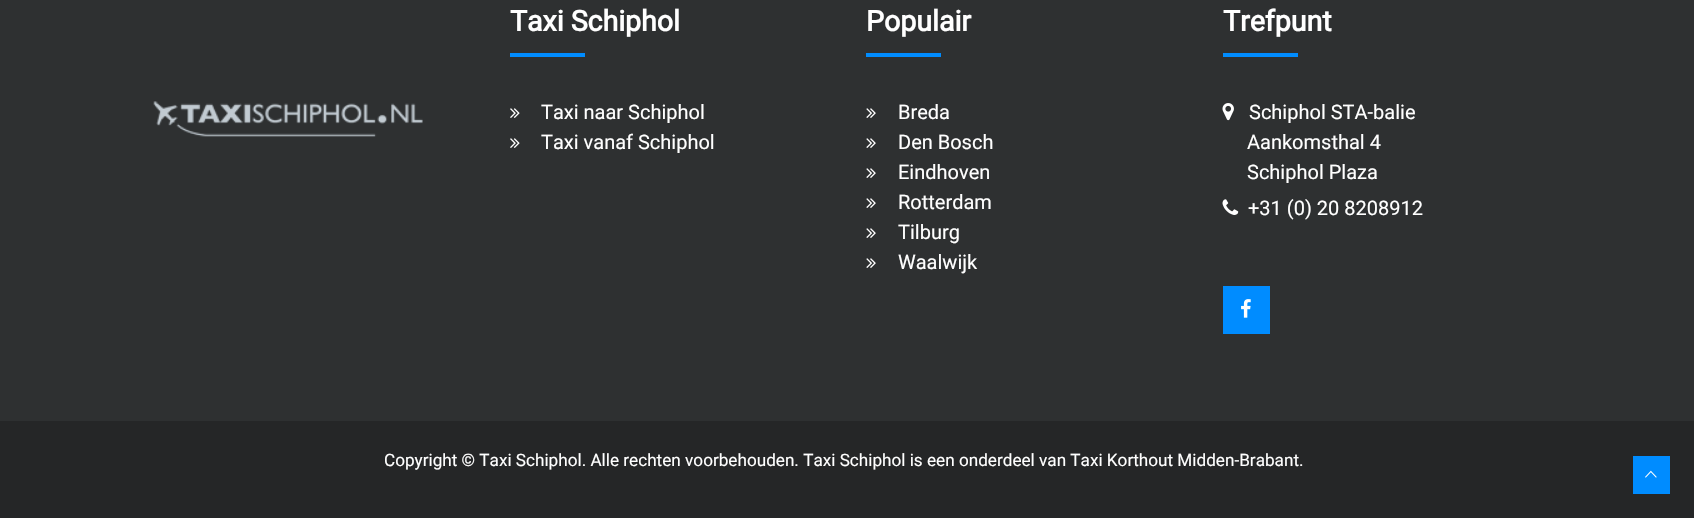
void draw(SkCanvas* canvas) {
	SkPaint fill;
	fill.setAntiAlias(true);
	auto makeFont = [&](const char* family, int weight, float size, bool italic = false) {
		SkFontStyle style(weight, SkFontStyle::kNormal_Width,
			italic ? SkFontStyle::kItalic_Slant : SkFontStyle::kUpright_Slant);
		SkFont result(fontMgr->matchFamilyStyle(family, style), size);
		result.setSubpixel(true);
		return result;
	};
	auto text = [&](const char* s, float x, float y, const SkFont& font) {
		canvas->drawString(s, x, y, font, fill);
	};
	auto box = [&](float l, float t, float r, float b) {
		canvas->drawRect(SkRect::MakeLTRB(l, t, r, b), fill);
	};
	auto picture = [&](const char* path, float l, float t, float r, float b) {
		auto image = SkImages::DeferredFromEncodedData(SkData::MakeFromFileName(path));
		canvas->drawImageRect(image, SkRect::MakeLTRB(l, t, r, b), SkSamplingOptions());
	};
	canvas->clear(0xFF2E3031);
	picture("image0.png", 153, 101, 423, 137);
	fill.setColor(0xFF008CFF);
	box(510, 53, 585, 57);
	picture("image1.png", 510, 108, 520, 118);
	picture("image1.png", 510, 138, 520, 148);
	box(866, 53, 941, 57);
	picture("image2.png", 866, 108, 876, 118);
	picture("image2.png", 866, 138, 876, 148);
	picture("image2.png", 866, 168, 876, 178);
	picture("image2.png", 866, 198, 876, 208);
	picture("image2.png", 866, 228, 876, 238);
	picture("image2.png", 866, 258, 876, 268);
	box(1223, 53, 1298, 57);
	picture("image3.png", 1222, 103, 1234, 121);
	picture("image4.png", 1222, 199, 1239, 215);
	box(1223, 286, 1270, 334);
	picture("image5.png", 1241, 299, 1251, 318);
	fill.setColor(0xFF252627);
	box(0, 421, 1694, 518);
	fill.setColor(0xFF008CFF);
	box(1633, 456, 1670, 494);
	picture("image6.png", 1645, 470, 1657, 478);
	auto font1 = makeFont("Roboto", 700, 28.5f);
	fill.setColor(0xFFFFFFFF);
	text("Taxi Schiphol", 510, 31, font1);
	auto font2 = makeFont("Roboto", 400, 20);
	text("Taxi naar Schiphol", 541, 119, font2);
	text("Taxi vanaf Schiphol", 541, 149, font2);
	text("Populair", 866, 31, font1);
	text("Breda", 898, 119, font2);
	text("Den Bosch", 898, 149, font2);
	text("Eindhoven", 898, 179, font2);
	text("Rotterdam", 898, 209, font2);
	text("Tilburg", 898, 239, font2);
	text("Waalwijk", 898, 269, font2);
	text("Trefpunt", 1223, 31, font1);
	text("Schiphol STA-balie", 1249, 119, font2);
	text("Aankomsthal 4", 1247, 149, font2);
	text("Schiphol Plaza", 1247, 179, font2);
	text("+31 (0) 20 8208912", 1248, 215, font2);
	auto font3 = makeFont("Roboto", 400, 17.15f);
	text("Copyright © Taxi Schiphol. Alle rechten voorbehouden. Taxi Schiphol is een onderdeel van Taxi Korthout Midden-Brabant.", 384, 466, font3);
}
